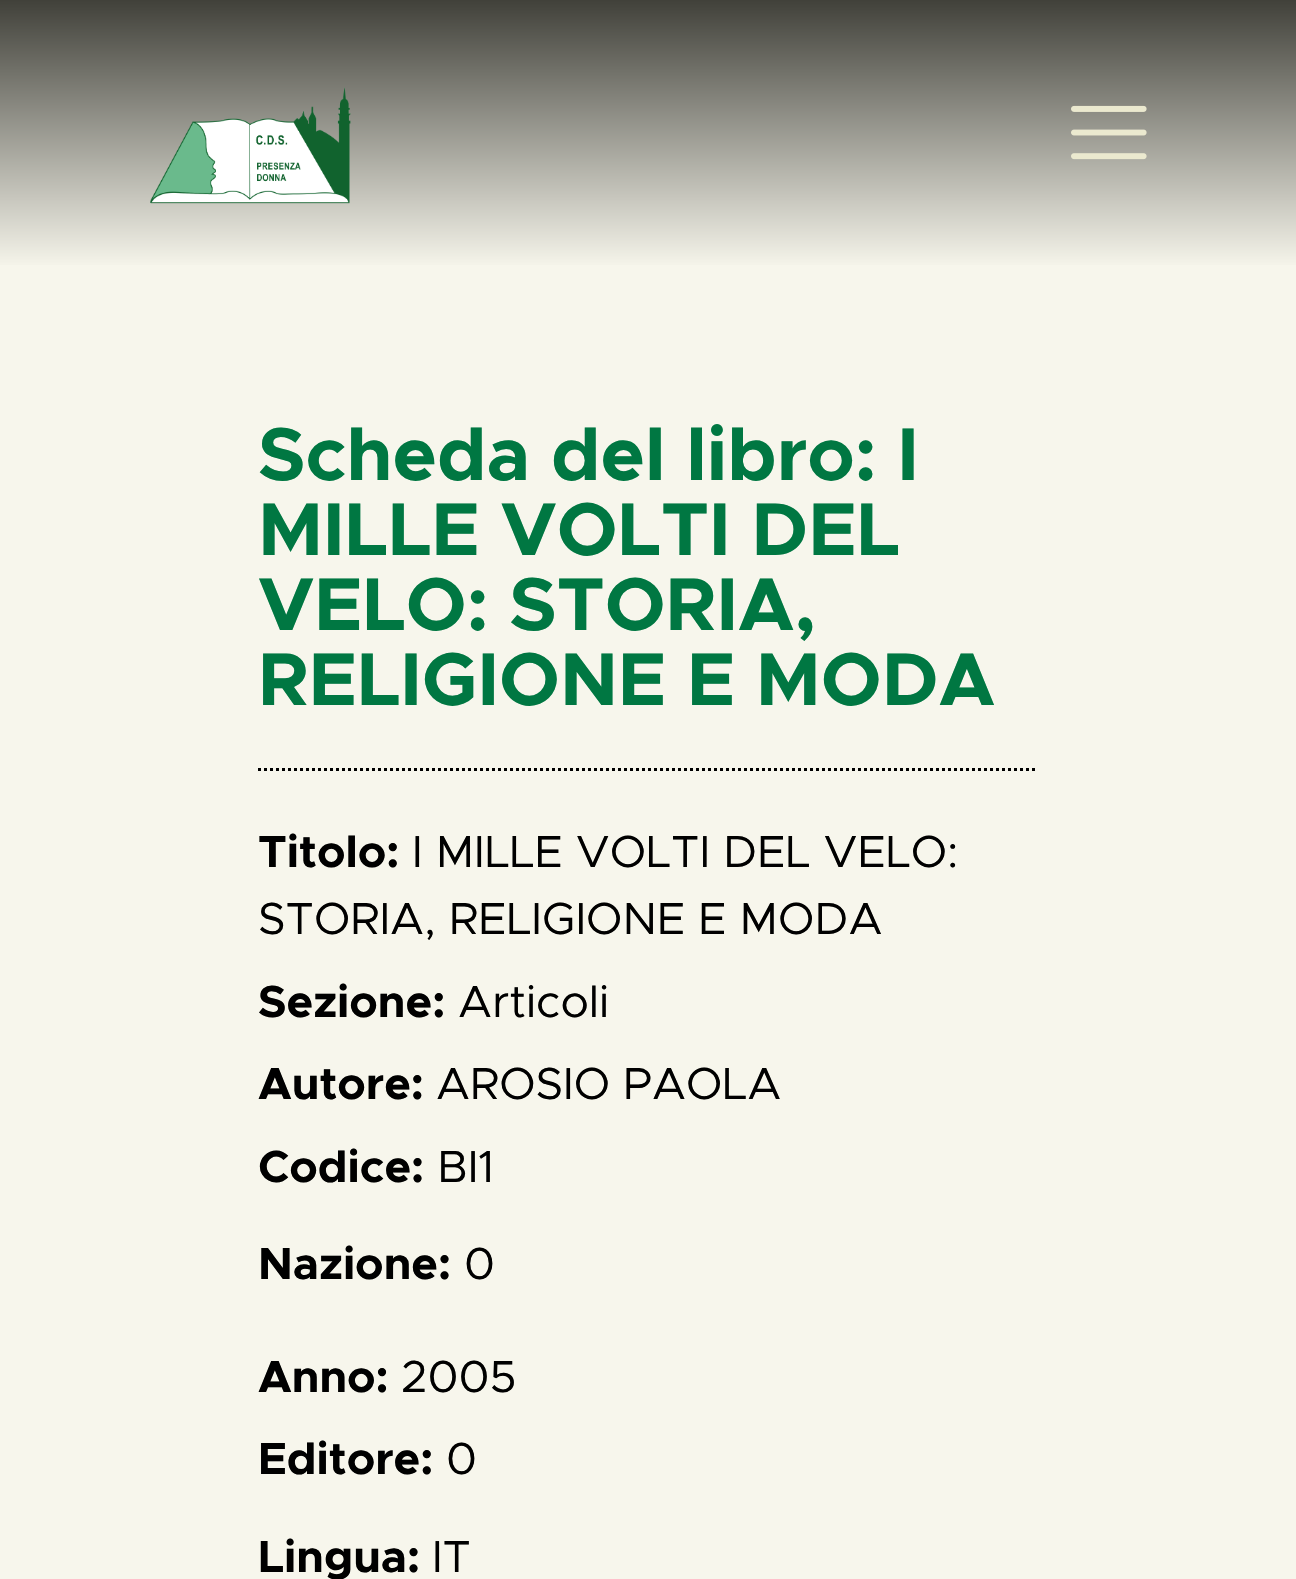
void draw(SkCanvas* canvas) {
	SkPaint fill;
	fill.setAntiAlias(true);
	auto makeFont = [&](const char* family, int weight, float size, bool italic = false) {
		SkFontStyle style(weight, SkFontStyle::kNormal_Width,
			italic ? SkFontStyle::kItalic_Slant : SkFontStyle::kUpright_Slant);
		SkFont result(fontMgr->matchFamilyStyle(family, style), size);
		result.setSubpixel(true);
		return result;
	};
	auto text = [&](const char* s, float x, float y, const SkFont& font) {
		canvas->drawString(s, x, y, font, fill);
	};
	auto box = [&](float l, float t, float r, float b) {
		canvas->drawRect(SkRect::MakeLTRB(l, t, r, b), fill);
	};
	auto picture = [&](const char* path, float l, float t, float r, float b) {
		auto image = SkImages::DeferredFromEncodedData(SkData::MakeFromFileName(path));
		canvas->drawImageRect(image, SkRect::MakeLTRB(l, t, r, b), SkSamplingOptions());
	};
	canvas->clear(0xFFF7F6EC);
	{
		const SkColor colors[] = {0xFFF8F7ED, 0xFF41413A};
		const float stops[] = {0, 1};
		const SkPoint ends[] = {{648, 270}, {648, 0}};
		fill.setShader(SkGradientShader::MakeLinear(ends, colors, stops, 2, SkTileMode::kClamp));
		fill.setAlpha(255);
	}
	box(0, 0, 1296, 265);
	picture("image0.png", 150, 87, 351, 204);
	picture("image1.png", 1071, 105, 1147, 160);
	fill.setStyle(SkPaint::kStroke_Style);
	fill.setStrokeWidth(3);
	fill.setShader(nullptr);
	fill.setColor(0xFF000000);
	fill.setPathEffect(SkDashPathEffect::Make({{3, 3}}, 0));
	canvas->drawPath(SkPathBuilder().moveTo(258, 769.5f).lineTo(1038, 769.5f).detach(), fill);
	fill.setPathEffect(nullptr);
	auto font1 = makeFont("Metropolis", 700, 75);
	fill.setStyle(SkPaint::kFill_Style);
	fill.setColor(0xFF007742);
	text("Scheda del libro: I", 258, 480, font1);
	text("MILLE VOLTI DEL", 258, 555, font1);
	text("VELO: STORIA,", 258, 630, font1);
	text("RELIGIONE E MODA", 258, 705, font1);
	auto font2 = makeFont("Metropolis", 700, 45);
	fill.setColor(0xFF000000);
	text("Titolo:", 258, 867, font2);
	auto font3 = makeFont("Metropolis", 400, 45);
	text("I MILLE VOLTI DEL VELO:", 412, 867, font3);
	text("STORIA, RELIGIONE E MODA", 258, 934, font3);
	text("Sezione:", 258, 1017, font2);
	text("Articoli", 458, 1017, font3);
	text("Autore:", 258, 1099, font2);
	text("AROSIO PAOLA", 436, 1099, font3);
	text("Codice:", 258, 1182, font2);
	text("BI1", 437, 1182, font3);
	text("Nazione:", 258, 1279, font2);
	text("0", 464, 1279, font3);
	text("Anno:", 258, 1392, font2);
	text("2005", 401, 1392, font3);
	text("Editore:", 258, 1474, font2);
	text("0", 446, 1474, font3);
	text("Lingua:", 258, 1572, font2);
	text("IT", 432, 1572, font3);
}
